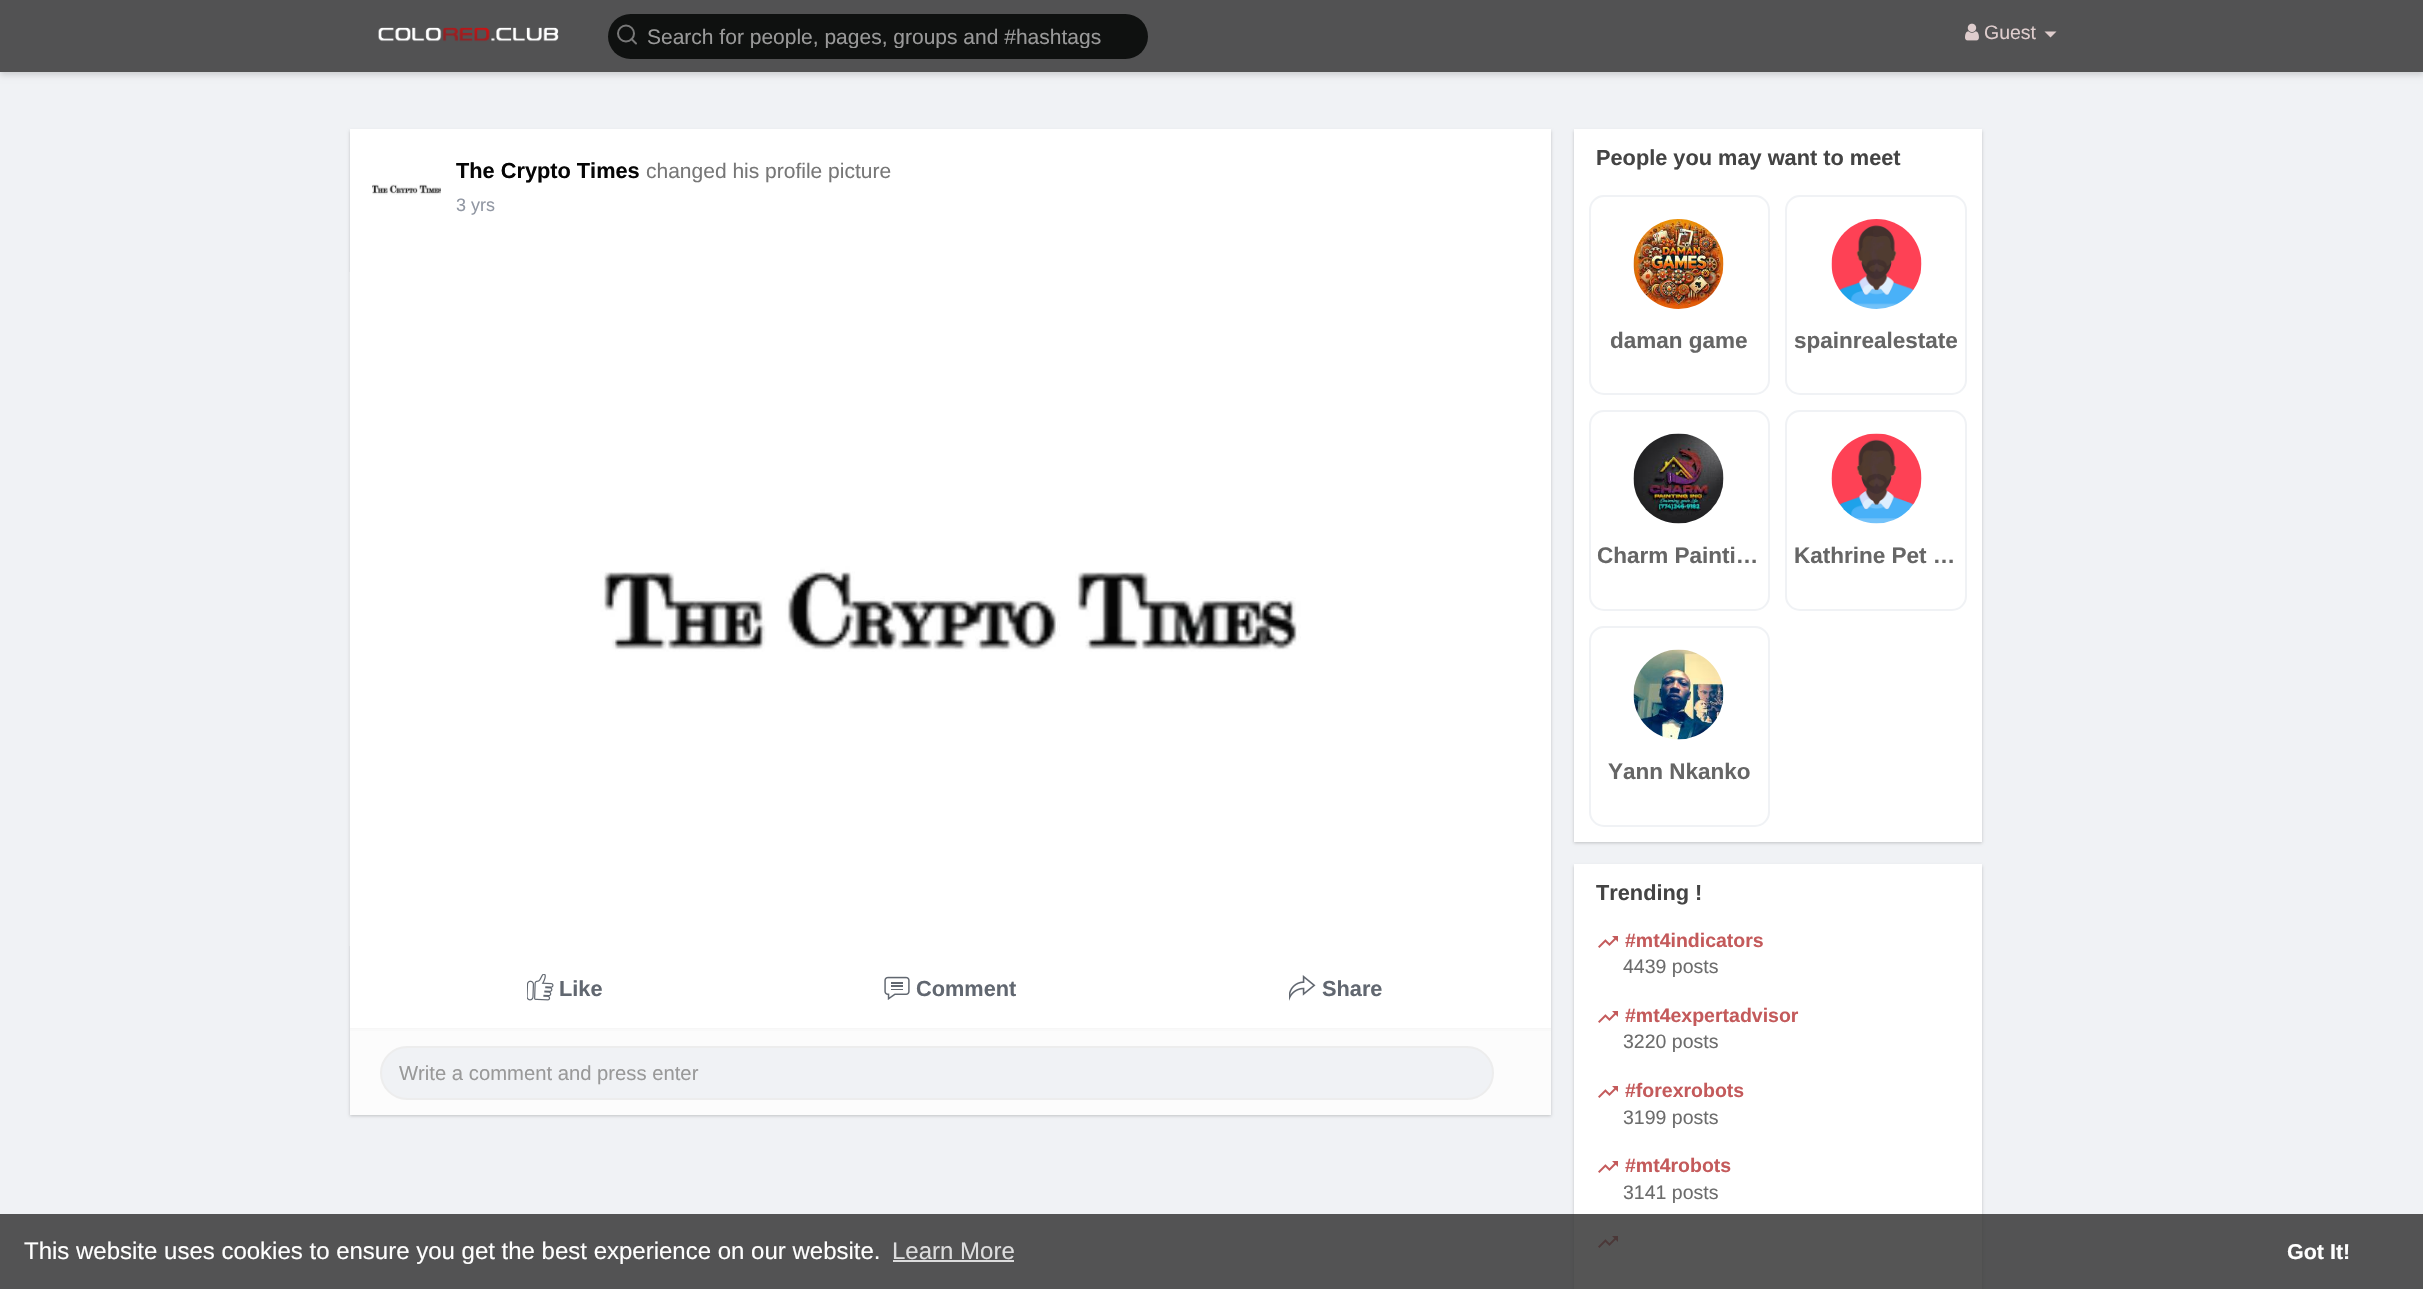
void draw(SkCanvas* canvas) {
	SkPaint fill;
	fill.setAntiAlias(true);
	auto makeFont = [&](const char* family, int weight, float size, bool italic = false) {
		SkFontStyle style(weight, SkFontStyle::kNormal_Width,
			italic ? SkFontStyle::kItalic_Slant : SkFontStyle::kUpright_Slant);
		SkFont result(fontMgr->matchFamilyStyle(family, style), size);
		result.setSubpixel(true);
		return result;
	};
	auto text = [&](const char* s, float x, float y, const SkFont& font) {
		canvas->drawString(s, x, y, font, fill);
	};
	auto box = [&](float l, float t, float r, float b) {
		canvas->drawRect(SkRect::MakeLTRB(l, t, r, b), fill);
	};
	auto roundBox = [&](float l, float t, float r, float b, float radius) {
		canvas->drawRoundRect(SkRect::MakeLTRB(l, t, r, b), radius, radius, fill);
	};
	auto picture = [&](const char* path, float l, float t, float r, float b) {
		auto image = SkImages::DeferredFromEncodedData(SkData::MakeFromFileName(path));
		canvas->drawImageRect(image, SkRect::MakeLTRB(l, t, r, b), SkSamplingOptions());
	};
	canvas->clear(0xFFF0F2F5);
	fill.setColor(0x26000000);
	fill.setMaskFilter(SkMaskFilter::MakeBlur(kNormal_SkBlurStyle, 3));
	canvas->drawRect(SkRect::MakeLTRB(0, 3, 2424, 75), fill);
	fill.setMaskFilter(nullptr);
	fill.setColor(0xFF525253);
	box(0, 0, 2423, 72);
	picture("image0.png", 378, 27, 559, 42);
	fill.setColor(0xFF0F1110);
	roundBox(608, 14, 1148, 59, 22.5f);
	fill.setStyle(SkPaint::kStroke_Style);
	fill.setStrokeWidth(2);
	fill.setColor(0xFF787878);
	canvas->drawCircle(626, 33.5f, 8, fill);
	fill.setStrokeCap(SkPaint::kRound_Cap);
	fill.setStrokeJoin(SkPaint::kRound_Join);
	canvas->drawPath(SkPathBuilder().moveTo(636, 43.5f).lineTo(631.5f, 39).detach(), fill);
	picture("image1.png", 1965, 23, 1979, 41);
	fill.setStyle(SkPaint::kFill_Style);
	fill.setColor(0xFFDFCDCD);
	canvas->drawPath(SkPathBuilder().moveTo(2044.5f, 31.5f).lineTo(2056.5f, 31.5f).lineTo(2050.5f, 37.5f).close().detach(), fill);
	fill.setColor(0x33000000);
	fill.setMaskFilter(SkMaskFilter::MakeBlur(kNormal_SkBlurStyle, 1.5f));
	canvas->drawRect(SkRect::MakeLTRB(350, 131, 1551, 1116), fill);
	fill.setMaskFilter(nullptr);
	fill.setColor(0xFFFFFFFF);
	box(350, 129, 1551, 1028);
	picture("image2.png", 372, 184, 441, 195);
	picture("image3.png", 349, 272, 1301, 946);
	picture("image4.png", 527, 974, 554, 1001);
	picture("image5.png", 884, 976, 910, 1000);
	picture("image6.png", 1289, 975, 1316, 1001);
	fill.setColor(0xFFFCFCFC);
	box(350, 1031, 1551, 1115);
	fill.setColor(0xFFF6F6F6);
	box(350, 1028, 1551, 1029);
	fill.setColor(0xFFF9F9F9);
	box(350, 1029, 1551, 1031);
	fill.setColor(0xFFF0F2F5);
	canvas->drawRoundRect(SkRect::MakeLTRB(381, 1047, 1493, 1099), 26, 26, fill);
	fill.setStyle(SkPaint::kStroke_Style);
	fill.setStrokeCap(SkPaint::kButt_Cap);
	fill.setStrokeJoin(SkPaint::kMiter_Join);
	fill.setColor(0xFFEDEDED);
	canvas->drawRoundRect(SkRect::MakeLTRB(381, 1047, 1493, 1099), 26, 26, fill);
	fill.setStyle(SkPaint::kFill_Style);
	fill.setColor(0x33000000);
	fill.setMaskFilter(SkMaskFilter::MakeBlur(kNormal_SkBlurStyle, 1.5f));
	canvas->drawRect(SkRect::MakeLTRB(1574, 131, 1982, 843), fill);
	fill.setMaskFilter(nullptr);
	fill.setColor(0xFFFFFFFF);
	box(1574, 129, 1982, 842);
	fill.setStyle(SkPaint::kStroke_Style);
	fill.setColor(0xFFF0F2F5);
	canvas->drawRoundRect(SkRect::MakeLTRB(1590, 196, 1769, 394), 14, 14, fill);
	picture("image7.png", 1633, 219, 1724, 309);
	canvas->drawRoundRect(SkRect::MakeLTRB(1786, 196, 1966, 394), 14, 14, fill);
	picture("image8.png", 1831, 219, 1922, 309);
	canvas->drawRoundRect(SkRect::MakeLTRB(1590, 411, 1769, 610), 14, 14, fill);
	picture("image9.png", 1633, 433, 1724, 524);
	canvas->drawRoundRect(SkRect::MakeLTRB(1786, 411, 1966, 610), 14, 14, fill);
	picture("image10.png", 1831, 433, 1922, 524);
	canvas->drawRoundRect(SkRect::MakeLTRB(1590, 627, 1769, 826), 14, 14, fill);
	picture("image11.png", 1633, 649, 1724, 740);
	fill.setStyle(SkPaint::kFill_Style);
	fill.setColor(0x33000000);
	fill.setMaskFilter(SkMaskFilter::MakeBlur(kNormal_SkBlurStyle, 1.5f));
	canvas->drawRect(SkRect::MakeLTRB(1574, 866, 1982, 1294), fill);
	fill.setMaskFilter(nullptr);
	fill.setColor(0xFFFFFFFF);
	box(1574, 864, 1982, 1289);
	picture("image12.png", 1598, 936, 1618, 948);
	picture("image12.png", 1598, 1011, 1618, 1023);
	picture("image12.png", 1598, 1086, 1618, 1098);
	picture("image12.png", 1598, 1161, 1618, 1173);
	picture("image12.png", 1598, 1236, 1618, 1248);
	fill.setColor(0xD12F2F2F);
	box(0, 1214, 2423, 1289);
	fill.setColor(0xFFDCDCDD);
	box(893, 1260, 1014, 1262);
	canvas->save();
	canvas->clipRect(SkRect::MakeLTRB(647, 24, 1128, 48));
	auto font1 = makeFont("Liberation Sans", 400, 21);
	fill.setColor(0xFF999999);
	text("Search for people, pages, groups and #hashtags", 647, 44, font1);
	canvas->restore();
	auto font2 = makeFont("Liberation Sans", 400, 19.5f);
	fill.setColor(0xFFDFCDCD);
	text("Guest", 1984, 39, font2);
	auto font3 = makeFont("Liberation Sans", 700, 21.75f);
	fill.setColor(0xFF050505);
	text("The Crypto Times", 456, 178, font3);
	fill.setColor(0xFF777777);
	text("changed his profile picture", 646, 178, font1);
	auto font4 = makeFont("Liberation Sans", 400, 18);
	fill.setColor(0xFF9197A3);
	text("3 yrs", 456, 211, font4);
	fill.setColor(0xFF616770);
	text("Like", 559, 996, font3);
	text("Comment", 916, 996, font3);
	text("Share", 1322, 996, font3);
	auto font5 = makeFont("Liberation Sans", 400, 20.25f);
	fill.setColor(0xFF999999);
	text("Write a comment and press enter", 399, 1080, font5);
	fill.setColor(0xFF444444);
	text("People you may want to meet", 1596, 165, font3);
	auto font6 = makeFont("Liberation Sans", 700, 22.5f);
	fill.setColor(0xFF666666);
	text("daman game", 1610, 348, font6);
	text("spainrealestate", 1794, 348, font6);
	text("Charm Painti…", 1597, 563, font6);
	text("Kathrine Pet …", 1794, 563, font6);
	text("Yann Nkanko", 1608, 779, font6);
	fill.setColor(0xFF444444);
	text("Trending !", 1596, 900, font3);
	auto font7 = makeFont("Liberation Sans", 700, 19.5f);
	fill.setColor(0xFFC45A5B);
	text("#mt4indicators", 1625, 947, font7);
	fill.setColor(0xFF6C6C6C);
	text("4439 posts", 1623, 973, font2);
	fill.setColor(0xFFC45A5B);
	text("#mt4expertadvisor", 1625, 1022, font7);
	fill.setColor(0xFF6C6C6C);
	text("3220 posts", 1623, 1048, font2);
	fill.setColor(0xFFC45A5B);
	text("#forexrobots", 1625, 1097, font7);
	fill.setColor(0xFF6C6C6C);
	text("3199 posts", 1623, 1124, font2);
	fill.setColor(0xFFC45A5B);
	text("#mt4robots", 1625, 1172, font7);
	fill.setColor(0xFF6C6C6C);
	text("3141 posts", 1623, 1199, font2);
	auto font8 = makeFont("Liberation Sans", 400, 24);
	fill.setColor(0xFFFFFFFF);
	text("This website uses cookies to ensure you get the best experience on our website.", 24, 1259, font8);
	fill.setColor(0xFFDCDCDD);
	text("Learn More", 892, 1259, font8);
	auto font9 = makeFont("Liberation Sans", 700, 21.5f);
	fill.setColor(0xFFFFFFFF);
	text("Got It!", 2287, 1259, font9);
}
